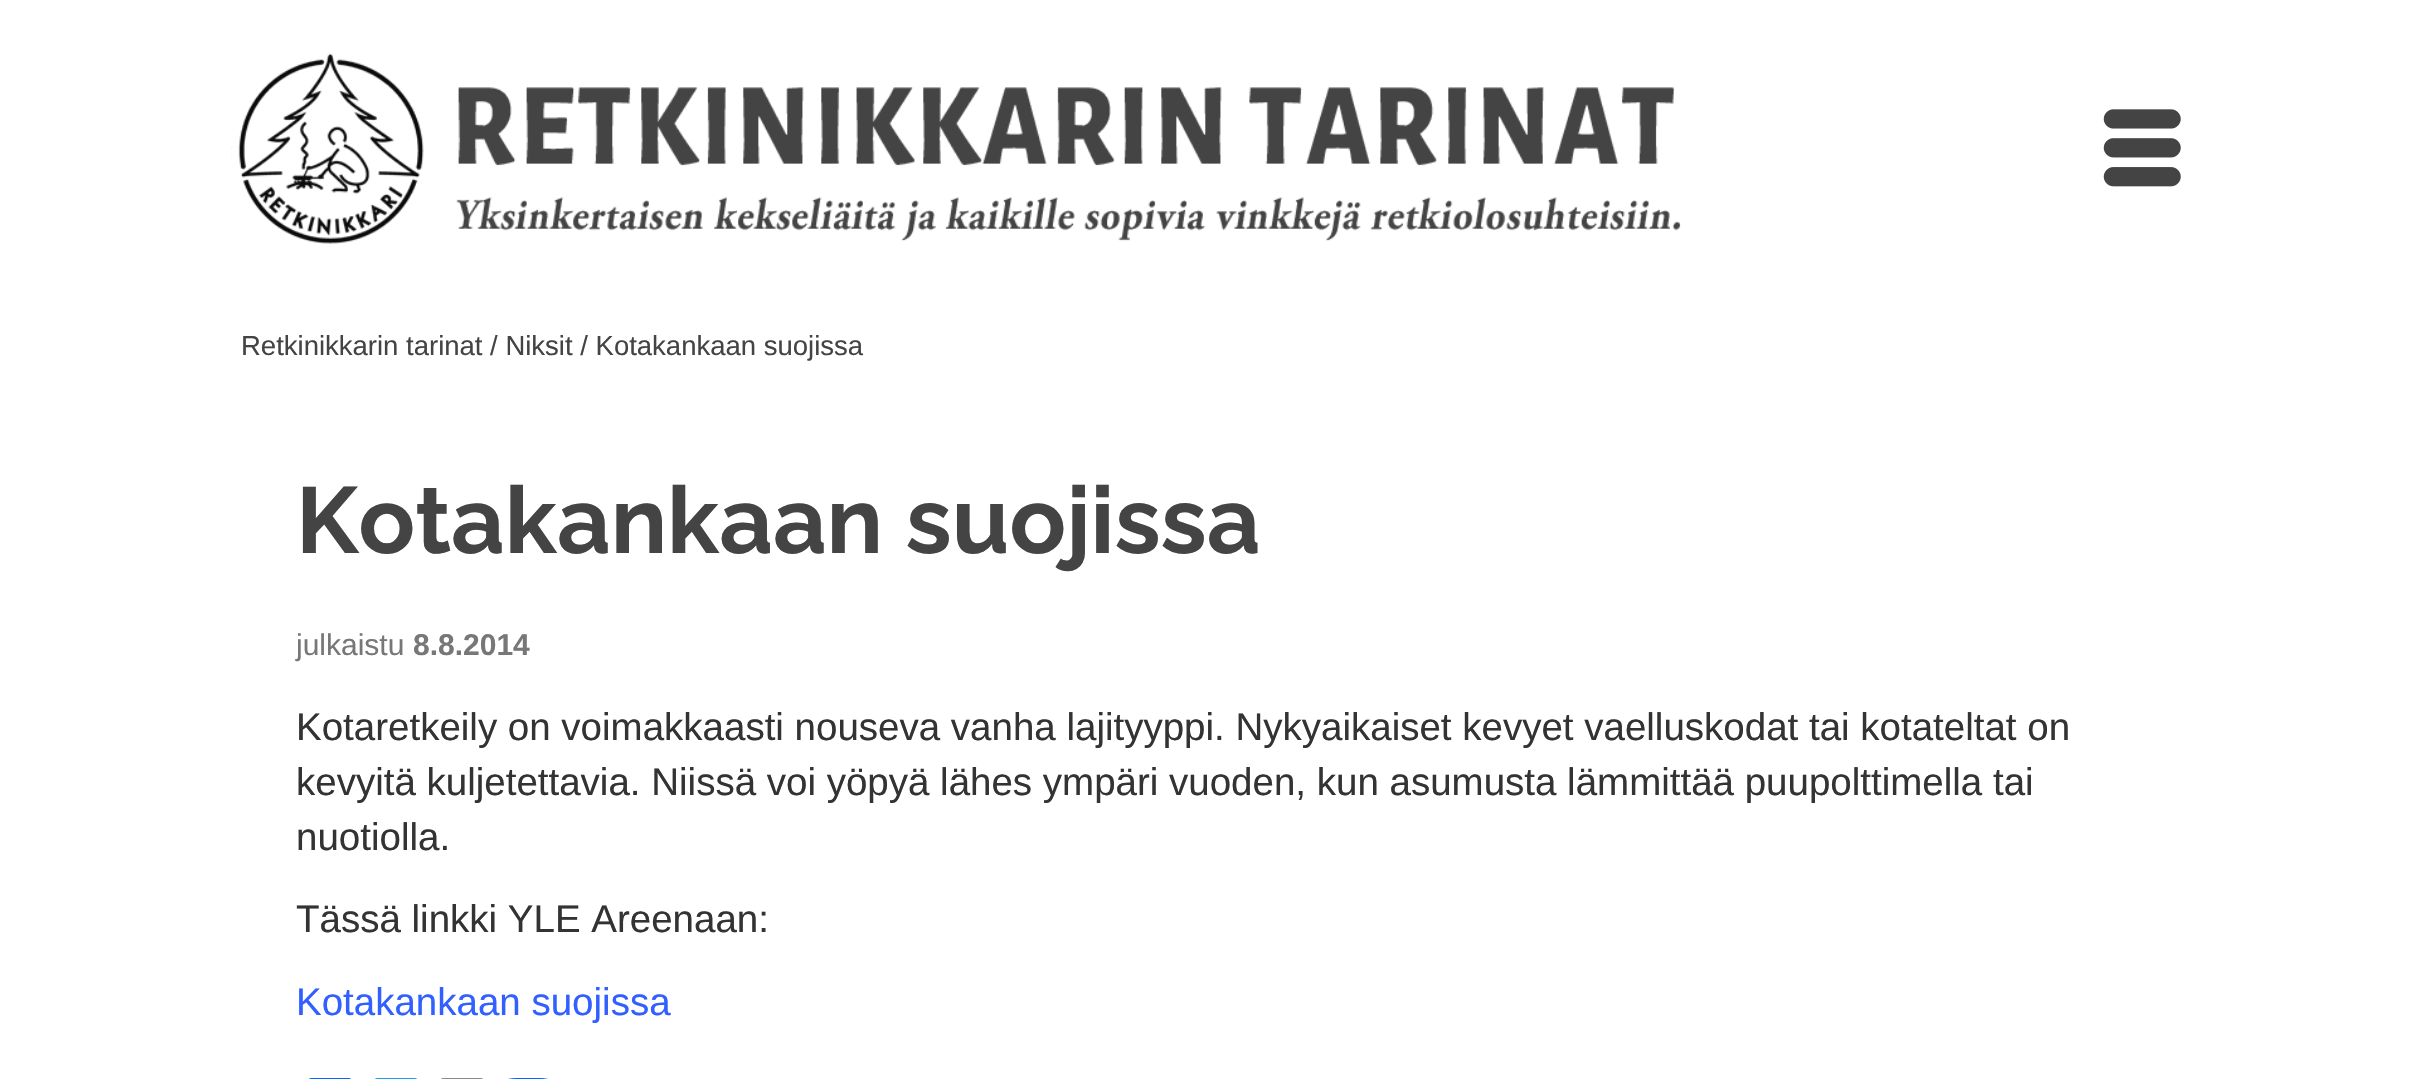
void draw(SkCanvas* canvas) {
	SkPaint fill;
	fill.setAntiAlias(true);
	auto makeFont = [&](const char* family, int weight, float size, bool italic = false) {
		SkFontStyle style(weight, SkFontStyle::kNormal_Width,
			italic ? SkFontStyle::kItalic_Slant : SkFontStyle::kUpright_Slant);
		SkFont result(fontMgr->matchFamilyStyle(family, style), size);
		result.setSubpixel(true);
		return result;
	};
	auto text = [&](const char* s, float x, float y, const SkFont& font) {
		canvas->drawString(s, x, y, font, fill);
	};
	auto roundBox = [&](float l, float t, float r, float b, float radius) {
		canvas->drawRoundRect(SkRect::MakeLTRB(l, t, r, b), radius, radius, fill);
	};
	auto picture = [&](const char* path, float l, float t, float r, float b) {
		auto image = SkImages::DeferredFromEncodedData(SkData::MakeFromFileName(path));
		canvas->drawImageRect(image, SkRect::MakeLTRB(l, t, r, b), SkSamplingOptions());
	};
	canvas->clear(0xFFFFFFFF);
	picture("image0.png", 231, 53, 1681, 244);
	picture("image1.png", 2103, 109, 2181, 187);
	fill.setColor(0xFF0866FF);
	roundBox(308, 1078, 352, 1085, 6);
	fill.setColor(0xFF1D9BF0);
	roundBox(374, 1078, 418, 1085, 6);
	fill.setColor(0xFF888990);
	roundBox(440, 1078, 484, 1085, 6);
	picture("image2.png", 508, 1078, 549, 1079);
	auto font1 = makeFont("Liberation Sans", 400, 27.5f);
	fill.setColor(0xFF444444);
	text("Retkinikkarin tarinat / Niksit / Kotakankaan suojissa", 241, 355, font1);
	auto font2 = makeFont("Raleway", 700, 93.5f);
	text("Kotakankaan suojissa", 296, 553, font2);
	auto font3 = makeFont("Liberation Sans", 400, 30);
	fill.setColor(0xFF777777);
	text("julkaistu", 296, 655, font3);
	auto font4 = makeFont("Liberation Sans", 700, 30);
	text("8.8.2014", 413, 655, font4);
	auto font5 = makeFont("Liberation Sans", 400, 38.5f);
	fill.setColor(0xFF333333);
	text("Kotaretkeily on voimakkaasti nouseva vanha lajityyppi. Nykyaikaiset kevyet vaelluskodat tai kotateltat on", 296, 740, font5);
	text("kevyitä kuljetettavia. Niissä voi yöpyä lähes ympäri vuoden, kun asumusta lämmittää puupolttimella tai", 296, 795, font5);
	text("nuotiolla.", 296, 850, font5);
	text("Tässä linkki YLE Areenaan:", 296, 932, font5);
	fill.setColor(0xFF325FFF);
	text("Kotakankaan suojissa", 296, 1015, font5);
}
